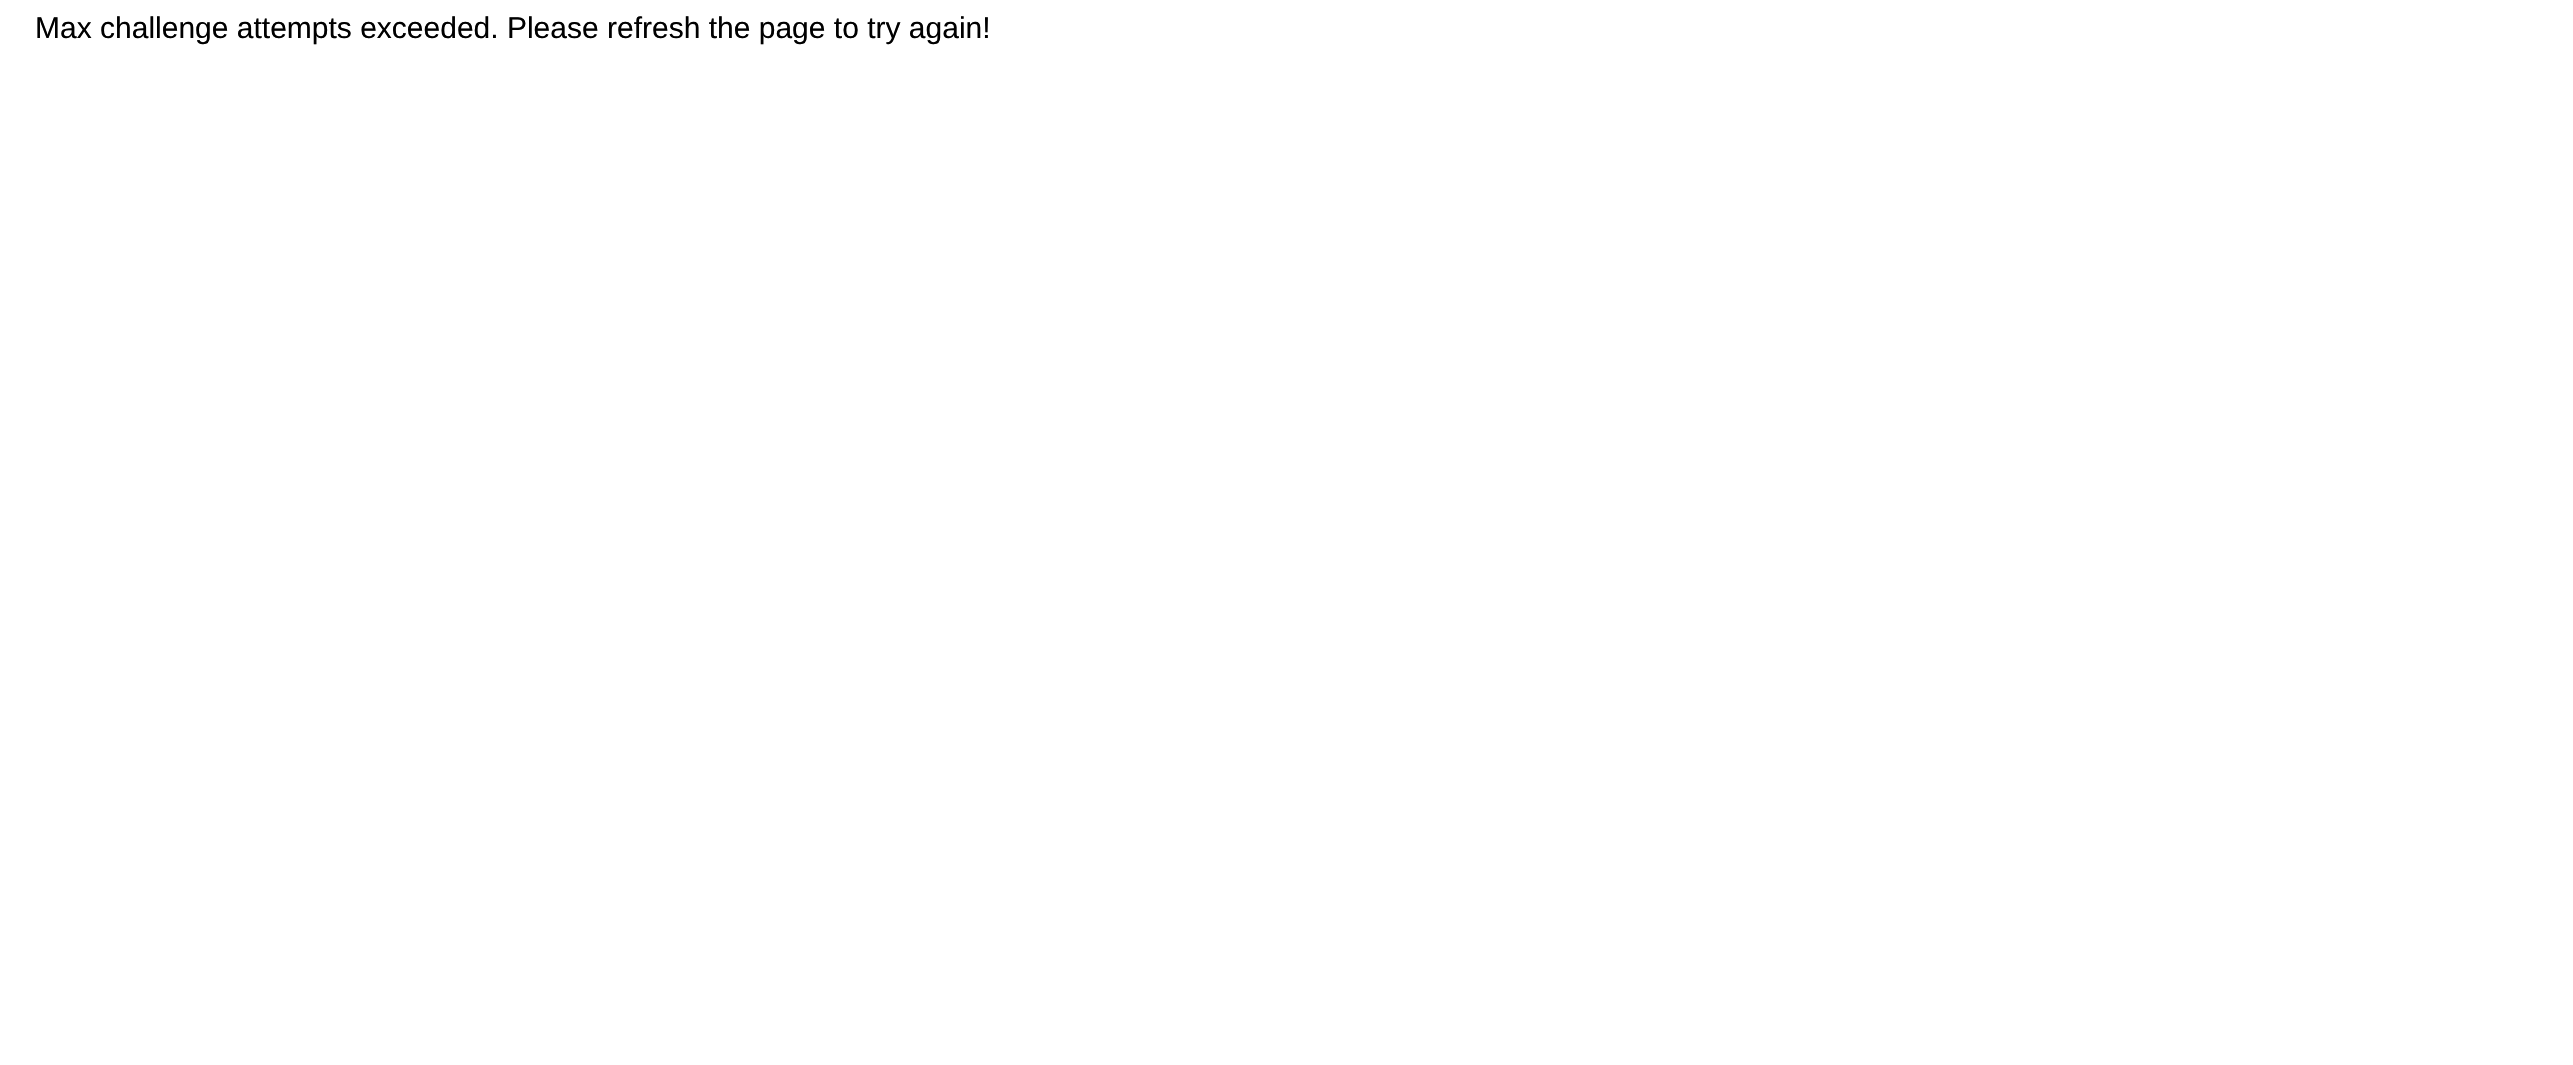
void draw(SkCanvas* canvas) {
	SkPaint fill;
	fill.setAntiAlias(true);
	auto makeFont = [&](const char* family, int weight, float size, bool italic = false) {
		SkFontStyle style(weight, SkFontStyle::kNormal_Width,
			italic ? SkFontStyle::kItalic_Slant : SkFontStyle::kUpright_Slant);
		SkFont result(fontMgr->matchFamilyStyle(family, style), size);
		result.setSubpixel(true);
		return result;
	};
	auto text = [&](const char* s, float x, float y, const SkFont& font) {
		canvas->drawString(s, x, y, font, fill);
	};
	canvas->clear(0xFFFFFFFF);
	auto font1 = makeFont("Liberation Sans", 400, 30);
	fill.setColor(0xFF000000);
	text("Max challenge attempts exceeded. Please refresh the page to try again!", 35, 38, font1);
}
